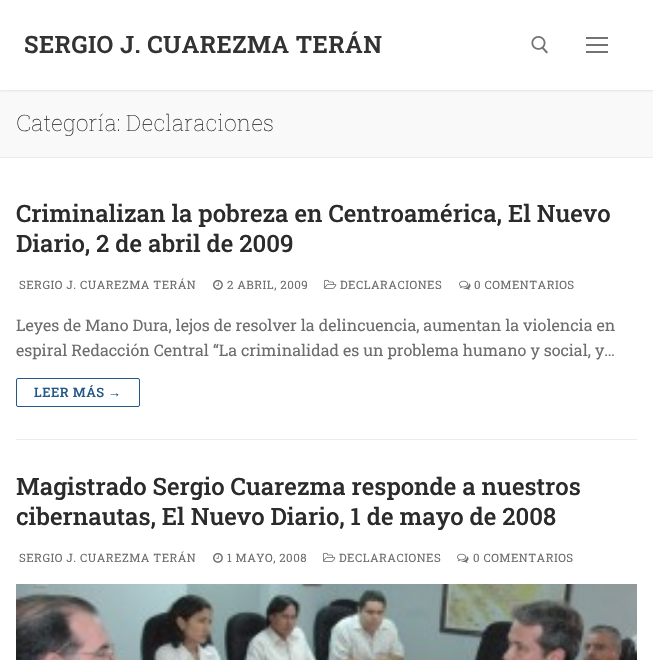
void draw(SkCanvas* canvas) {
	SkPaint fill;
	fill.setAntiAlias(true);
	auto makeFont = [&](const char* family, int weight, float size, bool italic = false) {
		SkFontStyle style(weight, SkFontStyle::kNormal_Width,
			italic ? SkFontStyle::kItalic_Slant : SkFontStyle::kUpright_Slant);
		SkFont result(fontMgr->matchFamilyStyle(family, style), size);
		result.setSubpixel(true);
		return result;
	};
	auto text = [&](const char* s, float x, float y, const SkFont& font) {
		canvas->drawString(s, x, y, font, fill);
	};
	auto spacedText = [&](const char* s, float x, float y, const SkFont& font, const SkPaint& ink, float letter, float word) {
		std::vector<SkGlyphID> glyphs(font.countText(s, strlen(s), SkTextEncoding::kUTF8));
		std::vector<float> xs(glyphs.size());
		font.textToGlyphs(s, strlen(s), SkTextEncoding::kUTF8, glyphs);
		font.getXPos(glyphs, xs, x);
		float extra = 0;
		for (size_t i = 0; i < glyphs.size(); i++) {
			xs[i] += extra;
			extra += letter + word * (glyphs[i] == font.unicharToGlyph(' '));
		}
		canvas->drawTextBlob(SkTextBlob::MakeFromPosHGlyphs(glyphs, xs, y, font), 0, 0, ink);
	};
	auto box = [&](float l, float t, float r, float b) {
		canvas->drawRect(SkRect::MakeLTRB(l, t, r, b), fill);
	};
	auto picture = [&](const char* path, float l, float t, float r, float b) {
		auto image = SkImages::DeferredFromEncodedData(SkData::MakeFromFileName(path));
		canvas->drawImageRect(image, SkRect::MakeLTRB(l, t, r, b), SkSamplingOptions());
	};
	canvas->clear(0xFFFFFFFF);
	fill.setColor(0xFFF9F9F9);
	box(0, 90, 653, 157);
	canvas->save();
	canvas->clipRect(SkRect::MakeLTRB(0, 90, 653, 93));
	fill.setColor(0xFFE1E5EA);
	fill.setMaskFilter(SkMaskFilter::MakeBlur(kNormal_SkBlurStyle, 1));
	canvas->drawRect(SkRect::MakeLTRB(0, 1, 653, 91), fill);
	fill.setMaskFilter(nullptr);
	canvas->restore();
	picture("image0.png", 531, 36, 548, 54);
	fill.setColor(0xFF737373);
	box(586, 44, 608, 46);
	box(586, 37, 608, 39);
	box(586, 51, 608, 53);
	fill.setColor(0xFFEAECEE);
	box(0, 157, 653, 158);
	box(16, 439, 637, 440);
	picture("image1.png", 213, 280, 223, 290);
	picture("image2.png", 324, 279, 337, 289);
	picture("image3.png", 459, 280, 471, 290);
	fill.setStyle(SkPaint::kStroke_Style);
	fill.setStrokeWidth(1);
	fill.setColor(0xFF235787);
	canvas->drawRoundRect(SkRect::MakeLTRB(16.5f, 378.5f, 139.5f, 406.5f), 1.5f, 1.5f, fill);
	picture("image1.png", 213, 553, 223, 563);
	picture("image2.png", 323, 552, 336, 562);
	picture("image3.png", 457, 553, 469, 563);
	picture("image4.png", 16, 584, 637, 660);
	auto font1 = makeFont("Roboto Slab", 600, 24);
	fill.setStyle(SkPaint::kFill_Style);
	fill.setColor(0xFF333333);
	spacedText("SERGIO J. CUAREZMA TERÁN", 24, 53, font1, fill, 0.4f, 0);
	auto font2 = makeFont("Roboto Slab", 100, 22.6f);
	fill.setColor(0xFF2B2B2B);
	text("Categoría: Declaraciones", 16, 131, font2);
	auto font3 = makeFont("Roboto Slab", 500, 24);
	text("Criminalizan la pobreza en Centroamérica, El Nuevo", 16, 222, font3);
	text("Diario, 2 de abril de 2009", 16, 252, font3);
	auto font4 = makeFont("Roboto Slab", 400, 11.5f);
	fill.setColor(0xFF6D6D6D);
	spacedText("SERGIO J. CUAREZMA TERÁN", 19, 289, font4, fill, 0.5f, 0);
	spacedText("2 ABRIL, 2009", 227, 289, font4, fill, 0.5f, 0);
	spacedText("DECLARACIONES", 340, 289, font4, fill, 0.5f, 0);
	spacedText("0 COMENTARIOS", 474, 289, font4, fill, 0.5f, 0);
	auto font5 = makeFont("Roboto Slab", 400, 16);
	text("Leyes de Mano Dura, lejos de resolver la delincuencia, aumentan la violencia en", 16, 331, font5);
	text("espiral Redacción Central “La criminalidad es un problema humano y social, y…", 16, 356, font5);
	auto font6 = makeFont("Roboto Slab", 500, 13);
	fill.setColor(0xFF235787);
	spacedText("LEER MÁS", 34, 397, font6, fill, 0.5f, 0);
	auto font7 = makeFont("Liberation Serif", 400, 13);
	spacedText("→", 108, 397, font7, fill, 0.5f, 0);
	fill.setColor(0xFF2B2B2B);
	text("Magistrado Sergio Cuarezma responde a nuestros", 16, 495, font3);
	text("cibernautas, El Nuevo Diario, 1 de mayo de 2008", 16, 525, font3);
	fill.setColor(0xFF6D6D6D);
	spacedText("SERGIO J. CUAREZMA TERÁN", 19, 562, font4, fill, 0.5f, 0);
	spacedText("1 MAYO, 2008", 227, 562, font4, fill, 0.5f, 0);
	spacedText("DECLARACIONES", 339, 562, font4, fill, 0.5f, 0);
	spacedText("0 COMENTARIOS", 473, 562, font4, fill, 0.5f, 0);
}
